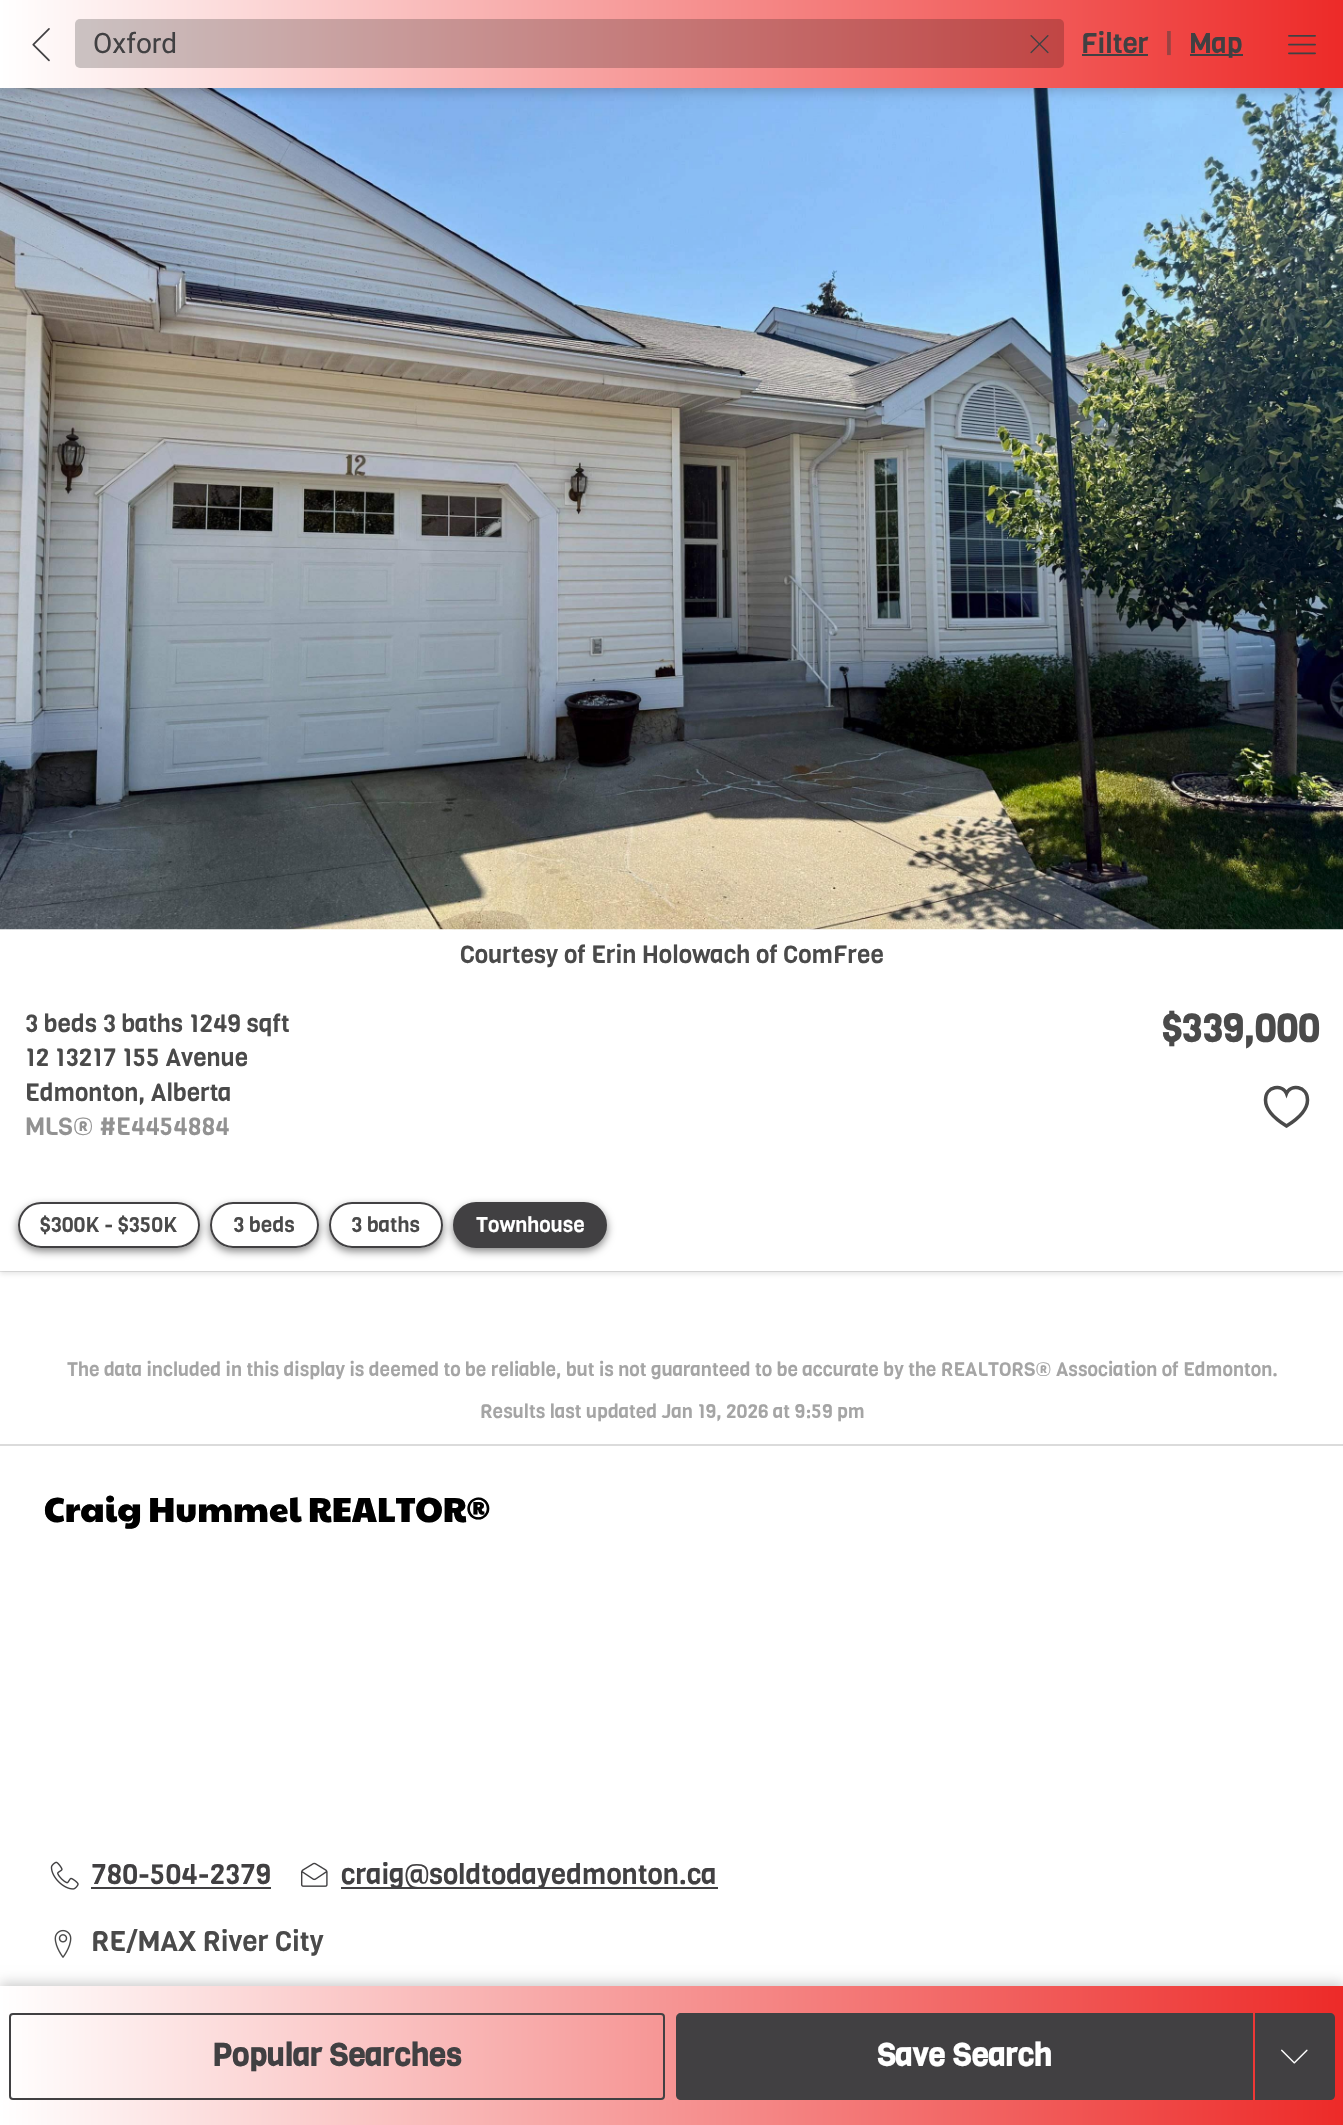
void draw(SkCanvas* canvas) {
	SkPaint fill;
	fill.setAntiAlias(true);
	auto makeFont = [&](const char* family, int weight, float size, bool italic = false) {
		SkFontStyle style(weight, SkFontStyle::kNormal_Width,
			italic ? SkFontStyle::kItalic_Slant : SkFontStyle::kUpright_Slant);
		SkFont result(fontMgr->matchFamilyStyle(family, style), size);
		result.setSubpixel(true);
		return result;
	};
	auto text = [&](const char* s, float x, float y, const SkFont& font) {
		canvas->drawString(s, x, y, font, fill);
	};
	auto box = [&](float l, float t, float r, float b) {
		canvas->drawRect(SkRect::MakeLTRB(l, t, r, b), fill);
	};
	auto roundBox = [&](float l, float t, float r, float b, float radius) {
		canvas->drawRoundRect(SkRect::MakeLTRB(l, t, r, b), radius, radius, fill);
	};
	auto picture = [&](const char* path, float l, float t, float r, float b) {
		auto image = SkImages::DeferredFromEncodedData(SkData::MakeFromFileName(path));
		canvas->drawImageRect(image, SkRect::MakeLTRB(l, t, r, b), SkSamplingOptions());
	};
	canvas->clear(0xFFFFFFFF);
	fill.setStyle(SkPaint::kStroke_Style);
	fill.setStrokeWidth(2);
	fill.setColor(0xFFE7E7E7);
	canvas->drawRect(SkRect::MakeLTRB(-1, 33, 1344, 1271), fill);
	fill.setStyle(SkPaint::kFill_Style);
	fill.setColor(0x1A0A0A0A);
	fill.setMaskFilter(SkMaskFilter::MakeBlur(kNormal_SkBlurStyle, 2.5f));
	canvas->drawRect(SkRect::MakeLTRB(0, 37, 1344, 1274), fill);
	fill.setMaskFilter(nullptr);
	fill.setColor(0xFFFFFFFF);
	box(0, 929, 1343, 1271);
	picture("image3.png", 0, 88, 1343, 930);
	fill.setColor(0x33000000);
	fill.setMaskFilter(SkMaskFilter::MakeBlur(kNormal_SkBlurStyle, 6));
	canvas->drawRect(SkRect::MakeLTRB(0, 4, 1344, 91), fill);
	fill.setMaskFilter(nullptr);
	{
		const SkColor colors[] = {0xFFFFFFFF, 0xFFED2A28};
		const float stops[] = {0, 1};
		const SkPoint ends[] = {{0, 44}, {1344, 44}};
		fill.setShader(SkGradientShader::MakeLinear(ends, colors, stops, 2, SkTileMode::kClamp));
		fill.setAlpha(255);
	}
	box(0, 0, 1343, 88);
	picture("image0.png", 32, 28, 50, 62);
	fill.setShader(nullptr);
	fill.setColor(0x33000000);
	roundBox(75, 19, 1064, 68, 5);
	picture("image1.png", 1030, 35, 1049, 54);
	fill.setColor(0xFF414042);
	box(1082, 54, 1148, 56);
	box(1190, 54, 1243, 56);
	picture("image2.png", 1288, 35, 1316, 55);
	fill.setStyle(SkPaint::kStroke_Style);
	fill.setStrokeWidth(3.5f);
	fill.setColor(0xFF4A4A4A);
	canvas->drawPath(SkPathBuilder().moveTo(1286.5f, 1093.5f).cubicTo(1283, 1084, 1265.5f, 1085.5f, 1265.5f, 1100).cubicTo(1265.5f, 1107, 1271, 1116.5f, 1286.5f, 1126).cubicTo(1302, 1116.5f, 1307.5f, 1107, 1307.5f, 1100).cubicTo(1307.5f, 1085.5f, 1290, 1084, 1286.5f, 1093.5f).close().detach(), fill);
	canvas->save();
	canvas->clipPath(SkPathBuilder(SkPathFillType::kEvenOdd).moveTo(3, 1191).lineTo(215, 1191).lineTo(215, 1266).lineTo(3, 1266).close().moveTo(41, 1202).lineTo(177, 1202).cubicTo(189.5f, 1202, 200, 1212.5f, 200, 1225).cubicTo(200, 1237.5f, 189.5f, 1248, 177, 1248).lineTo(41, 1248).cubicTo(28.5f, 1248, 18, 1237.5f, 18, 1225).cubicTo(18, 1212.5f, 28.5f, 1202, 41, 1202).close().detach(), true);
	fill.setStyle(SkPaint::kFill_Style);
	fill.setColor(0xFF808080);
	fill.setMaskFilter(SkMaskFilter::MakeBlur(kNormal_SkBlurStyle, 4.5f));
	canvas->drawRoundRect(SkRect::MakeLTRB(18, 1206, 200, 1251), 22.5f, 22.5f, fill);
	fill.setMaskFilter(nullptr);
	canvas->restore();
	fill.setStyle(SkPaint::kStroke_Style);
	fill.setStrokeWidth(2);
	fill.setColor(0xFF414042);
	canvas->drawRoundRect(SkRect::MakeLTRB(19, 1203, 199, 1247), 22, 22, fill);
	canvas->save();
	canvas->clipPath(SkPathBuilder(SkPathFillType::kEvenOdd).moveTo(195, 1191).lineTo(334, 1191).lineTo(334, 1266).lineTo(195, 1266).close().moveTo(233, 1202).lineTo(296, 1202).cubicTo(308.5f, 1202, 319, 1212.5f, 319, 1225).cubicTo(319, 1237.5f, 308.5f, 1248, 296, 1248).lineTo(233, 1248).cubicTo(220.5f, 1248, 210, 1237.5f, 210, 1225).cubicTo(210, 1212.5f, 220.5f, 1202, 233, 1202).close().detach(), true);
	fill.setStyle(SkPaint::kFill_Style);
	fill.setColor(0xFF808080);
	fill.setMaskFilter(SkMaskFilter::MakeBlur(kNormal_SkBlurStyle, 4.5f));
	canvas->drawRoundRect(SkRect::MakeLTRB(210, 1206, 319, 1251), 22.5f, 22.5f, fill);
	fill.setMaskFilter(nullptr);
	canvas->restore();
	fill.setStyle(SkPaint::kStroke_Style);
	fill.setColor(0xFF414042);
	canvas->drawRoundRect(SkRect::MakeLTRB(211, 1203, 318, 1247), 22, 22, fill);
	canvas->save();
	canvas->clipPath(SkPathBuilder(SkPathFillType::kEvenOdd).moveTo(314, 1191).lineTo(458, 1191).lineTo(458, 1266).lineTo(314, 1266).close().moveTo(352, 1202).lineTo(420, 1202).cubicTo(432.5f, 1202, 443, 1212.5f, 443, 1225).cubicTo(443, 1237.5f, 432.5f, 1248, 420, 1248).lineTo(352, 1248).cubicTo(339.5f, 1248, 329, 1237.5f, 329, 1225).cubicTo(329, 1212.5f, 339.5f, 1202, 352, 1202).close().detach(), true);
	fill.setStyle(SkPaint::kFill_Style);
	fill.setColor(0xFF808080);
	fill.setMaskFilter(SkMaskFilter::MakeBlur(kNormal_SkBlurStyle, 4.5f));
	canvas->drawRoundRect(SkRect::MakeLTRB(329, 1206, 443, 1251), 22.5f, 22.5f, fill);
	fill.setMaskFilter(nullptr);
	canvas->restore();
	fill.setStyle(SkPaint::kStroke_Style);
	fill.setColor(0xFF414042);
	canvas->drawRoundRect(SkRect::MakeLTRB(330, 1203, 442, 1247), 22, 22, fill);
	fill.setStyle(SkPaint::kFill_Style);
	fill.setColor(0xFF808080);
	fill.setMaskFilter(SkMaskFilter::MakeBlur(kNormal_SkBlurStyle, 4.5f));
	canvas->drawRoundRect(SkRect::MakeLTRB(453, 1206, 607, 1251), 22.5f, 22.5f, fill);
	fill.setMaskFilter(nullptr);
	fill.setColor(0xFF414042);
	canvas->drawRoundRect(SkRect::MakeLTRB(454, 1203, 606, 1247), 22, 22, fill);
	fill.setStyle(SkPaint::kStroke_Style);
	canvas->drawRoundRect(SkRect::MakeLTRB(454, 1203, 606, 1247), 22, 22, fill);
	fill.setStyle(SkPaint::kFill_Style);
	fill.setColor(0xFFDBDBDB);
	box(0, 1444, 1343, 1446);
	picture("image4.png", 50, 1861, 79, 1890);
	fill.setColor(0xFF414042);
	box(91, 1887, 271, 1889);
	picture("image5.png", 301, 1862, 328, 1887);
	box(341, 1887, 718, 1889);
	picture("image6.png", 54, 1929, 72, 1958);
	fill.setColor(0x33000000);
	fill.setMaskFilter(SkMaskFilter::MakeBlur(kNormal_SkBlurStyle, 6));
	canvas->drawRect(SkRect::MakeLTRB(0, 1983, 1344, 2123), fill);
	fill.setMaskFilter(nullptr);
	{
		const SkColor colors[] = {0xFFFFFFFF, 0xFFED2A28};
		const float stops[] = {0, 1};
		const SkPoint ends[] = {{0, 2056}, {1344, 2056}};
		fill.setShader(SkGradientShader::MakeLinear(ends, colors, stops, 2, SkTileMode::kClamp));
		fill.setAlpha(255);
	}
	box(0, 1986, 1343, 2125);
	fill.setStyle(SkPaint::kStroke_Style);
	fill.setShader(nullptr);
	fill.setColor(0xFF414042);
	canvas->drawRoundRect(SkRect::MakeLTRB(10, 2014, 664, 2099), 3, 3, fill);
	fill.setStyle(SkPaint::kFill_Style);
	canvas->drawPath(SkPathBuilder().moveTo(681, 2013).lineTo(1253, 2013).lineTo(1253, 2100).lineTo(681, 2100).cubicTo(678, 2100, 676, 2098, 676, 2095).lineTo(676, 2018).cubicTo(676, 2015, 678, 2013, 681, 2013).close().detach(), fill);
	canvas->drawPath(SkPathBuilder().moveTo(1255, 2013).lineTo(1330, 2013).cubicTo(1333, 2013, 1335, 2015, 1335, 2018).lineTo(1335, 2095).cubicTo(1335, 2098, 1333, 2100, 1330, 2100).lineTo(1255, 2100).close().detach(), fill);
	picture("image7.png", 1281, 2049, 1308, 2064);
	auto font1 = makeFont("Roboto", 400, 28);
	text("Oxford", 93, 53, font1);
	auto font2 = makeFont("Viga", 400, 28);
	text("Filter", 1081, 53, font2);
	fill.setColor(0xFF984343);
	text("|", 1164, 53, font2);
	fill.setColor(0xFF414042);
	text("Map", 1189, 53, font2);
	auto font3 = makeFont("Viga", 400, 24.5f);
	fill.setColor(0xFF4A4A4A);
	text("Courtesy of Erin Holowach of ComFree", 460, 963, font3);
	text("3 beds 3 baths 1249 sqft", 25, 1032, font3);
	text("12 13217 155 Avenue", 25, 1066, font3);
	text("Edmonton, Alberta", 25, 1101, font3);
	fill.setColor(0xFF929292);
	text("MLS® #E4454884", 25, 1135, font3);
	auto font4 = makeFont("Viga", 700, 38.5f);
	fill.setColor(0xFF4A4A4A);
	text("$339,000", 1162, 1042, font4);
	auto font5 = makeFont("Viga", 400, 21);
	text("$300K - $350K", 40, 1232, font5);
	text("3 beds", 233, 1232, font5);
	text("3 baths", 351, 1232, font5);
	fill.setColor(0xFFFFFFFF);
	text("Townhouse", 476, 1232, font5);
	auto font6 = makeFont("Viga", 400, 19.25f);
	fill.setColor(0xFFA5A5A5);
	text("The data included in this display is deemed to be reliable, but is not guaranteed to be accurate by the REALTORS® Association of Edmonton.", 67, 1376, font6);
	text("Results last updated Jan 19, 2026 at 9:59 pm", 480, 1418, font6);
	auto font7 = makeFont("Paytone One", 400, 35);
	fill.setColor(0xFF000000);
	text("Craig Hummel REALTOR®", 44, 1522, font7);
	fill.setColor(0xFF414042);
	text("780-504-2379", 91, 1884, font2);
	text("craig@soldtodayedmonton.ca", 341, 1884, font2);
	fill.setColor(0xFF4A4A4A);
	text("RE/MAX River City", 91, 1951, font2);
	auto font8 = makeFont("Viga", 700, 31.5f);
	fill.setColor(0xFF414042);
	text("Popular Searches", 212, 2066, font8);
	fill.setColor(0xFFFFFFFF);
	text("Save Search", 877, 2066, font8);
}
